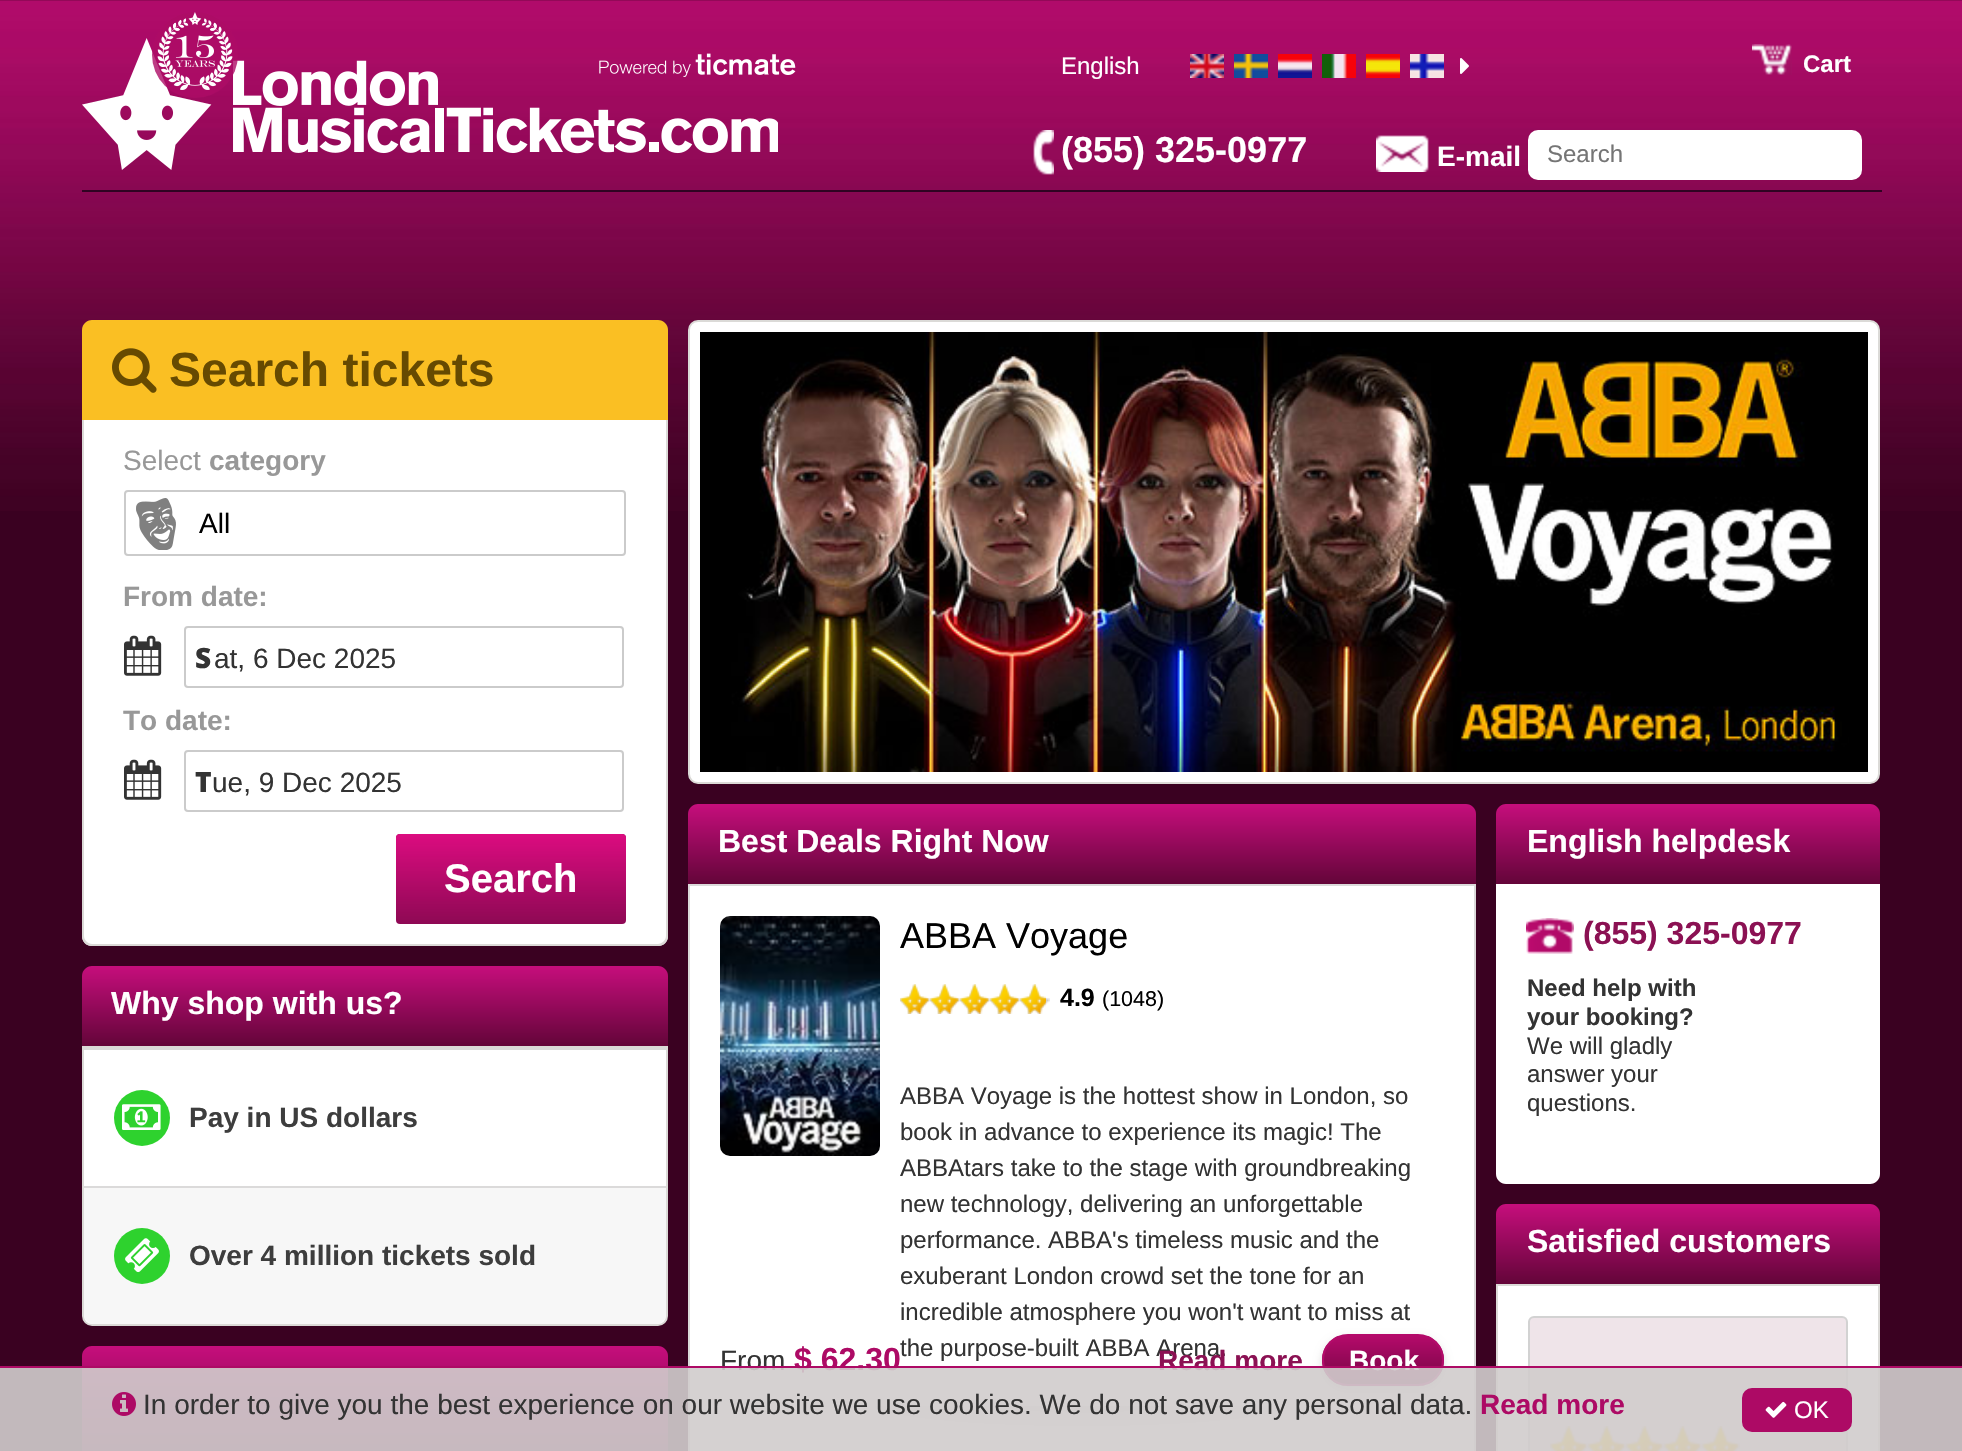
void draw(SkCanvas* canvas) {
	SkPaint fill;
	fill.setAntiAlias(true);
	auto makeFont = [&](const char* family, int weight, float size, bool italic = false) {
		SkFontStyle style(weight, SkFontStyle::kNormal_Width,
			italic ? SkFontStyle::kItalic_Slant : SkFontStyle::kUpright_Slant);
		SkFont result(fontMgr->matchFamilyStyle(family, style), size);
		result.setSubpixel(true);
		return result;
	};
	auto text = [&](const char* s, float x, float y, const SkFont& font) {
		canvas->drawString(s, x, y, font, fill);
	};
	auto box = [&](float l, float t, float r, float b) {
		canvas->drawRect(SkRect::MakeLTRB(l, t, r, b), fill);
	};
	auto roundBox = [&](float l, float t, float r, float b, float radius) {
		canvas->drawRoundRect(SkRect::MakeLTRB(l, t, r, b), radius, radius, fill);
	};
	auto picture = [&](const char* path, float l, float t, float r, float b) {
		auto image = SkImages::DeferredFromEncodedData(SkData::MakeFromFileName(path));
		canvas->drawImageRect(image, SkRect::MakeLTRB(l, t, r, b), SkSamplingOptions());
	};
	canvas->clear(0xFF3A0121);
	picture("image0.png", 0, 0, 1962, 511);
	picture("image2.png", 82, 38, 778, 170);
	fill.setColor(0xCCAD0B65);
	canvas->drawCircle(195, 55, 43, fill);
	picture("image1.png", 157, 12, 233, 90);
	picture("image3.png", 599, 53, 796, 77);
	picture("image4.png", 1752, 44, 1792, 75);
	picture("image5.png", 1033, 130, 1054, 175);
	picture("image6.png", 1376, 135, 1429, 172);
	fill.setColor(0xFF300322);
	box(82, 190, 1882, 192);
	picture("image7.png", 1190, 54, 1224, 78);
	picture("image8.png", 1234, 54, 1268, 78);
	picture("image9.png", 1278, 54, 1312, 78);
	picture("image10.png", 1322, 54, 1356, 78);
	picture("image11.png", 1366, 54, 1400, 78);
	picture("image12.png", 1410, 54, 1444, 78);
	picture("image13.png", 1460, 58, 1469, 74);
	fill.setColor(0xFFFFFFFF);
	roundBox(1528, 130, 1862, 180, 10);
	fill.setColor(0xFFFABF23);
	canvas->drawPath(SkPathBuilder().moveTo(92, 320).lineTo(658, 320).cubicTo(663.5f, 320, 668, 324.5f, 668, 330).lineTo(668, 420).lineTo(82, 420).lineTo(82, 330).cubicTo(82, 324.5f, 86.5f, 320, 92, 320).close().detach(), fill);
	picture("image14.png", 112, 348, 157, 393);
	fill.setColor(0xFFFFFFFF);
	canvas->drawPath(SkPathBuilder().moveTo(82, 420).lineTo(668, 420).lineTo(668, 936).cubicTo(668, 941.5f, 663.5f, 946, 658, 946).lineTo(92, 946).cubicTo(86.5f, 946, 82, 941.5f, 82, 936).close().detach(), fill);
	fill.setColor(0xFFDBDAD7);
	canvas->drawPath(SkPathBuilder(SkPathFillType::kEvenOdd).moveTo(82, 420).lineTo(668, 420).lineTo(668, 936).cubicTo(668, 942, 664, 946, 658, 946).lineTo(92, 946).cubicTo(86, 946, 82, 942, 82, 936).close().moveTo(84, 420).lineTo(666, 420).lineTo(666, 936).cubicTo(666, 940, 662, 944, 658, 944).lineTo(92, 944).cubicTo(88, 944, 84, 940, 84, 936).close().detach(), fill);
	fill.setStyle(SkPaint::kStroke_Style);
	fill.setStrokeWidth(2);
	fill.setColor(0xFFCBCBCB);
	canvas->drawRoundRect(SkRect::MakeLTRB(125, 491, 625, 555), 3, 3, fill);
	picture("image15.png", 136, 498, 176, 550);
	picture("image16.png", 124, 635, 162, 676);
	canvas->drawRoundRect(SkRect::MakeLTRB(185, 627, 623, 687), 3, 3, fill);
	picture("image16.png", 124, 759, 162, 800);
	canvas->drawRoundRect(SkRect::MakeLTRB(185, 751, 623, 811), 3, 3, fill);
	fill.setStyle(SkPaint::kFill_Style);
	fill.setColor(0xFF8E0854);
	roundBox(396, 834, 626, 924, 4);
	{
		const SkColor colors[] = {0x00DB0B7F, 0xFFDB0B7F};
		const float stops[] = {0, 1};
		const SkPoint ends[] = {{511, 924}, {511, 834}};
		fill.setShader(SkGradientShader::MakeLinear(ends, colors, stops, 2, SkTileMode::kClamp));
		fill.setAlpha(255);
	}
	roundBox(396, 834, 626, 924, 4);
	{
		const SkColor colors[] = {0xFFC60E7C, 0xFF630539};
		const float stops[] = {0, 1};
		const SkPoint ends[] = {{375, 966}, {375, 1046}};
		fill.setShader(SkGradientShader::MakeLinear(ends, colors, stops, 2, SkTileMode::kClamp));
		fill.setAlpha(255);
	}
	canvas->drawPath(SkPathBuilder().moveTo(92, 966).lineTo(658, 966).cubicTo(663.5f, 966, 668, 970.5f, 668, 976).lineTo(668, 1046).lineTo(82, 1046).lineTo(82, 976).cubicTo(82, 970.5f, 86.5f, 966, 92, 966).close().detach(), fill);
	fill.setShader(nullptr);
	fill.setColor(0xFFFFFFFF);
	canvas->drawPath(SkPathBuilder().moveTo(83, 1047).lineTo(667, 1047).lineTo(667, 1316).cubicTo(667, 1321, 663, 1325, 658, 1325).lineTo(92, 1325).cubicTo(87, 1325, 83, 1321, 83, 1316).close().detach(), fill);
	fill.setStyle(SkPaint::kStroke_Style);
	fill.setColor(0xFFDBDAD7);
	canvas->drawPath(SkPathBuilder().moveTo(83, 1047).lineTo(667, 1047).lineTo(667, 1316).cubicTo(667, 1321, 663, 1325, 658, 1325).lineTo(92, 1325).cubicTo(87, 1325, 83, 1321, 83, 1316).close().detach(), fill);
	fill.setStyle(SkPaint::kFill_Style);
	fill.setColor(0xFFDBDADA);
	box(84, 1048, 666, 1050);
	fill.setColor(0xFF2ED22E);
	canvas->drawCircle(142, 1118, 28, fill);
	picture("image17.png", 122, 1104, 161, 1130);
	fill.setColor(0xFFF7F7F7);
	canvas->drawPath(SkPathBuilder().moveTo(84, 1186).lineTo(666, 1186).lineTo(666, 1314).cubicTo(666, 1319.5f, 661.5f, 1324, 656, 1324).lineTo(94, 1324).cubicTo(88.5f, 1324, 84, 1319.5f, 84, 1314).close().detach(), fill);
	fill.setColor(0xFFDBDADA);
	box(84, 1186, 666, 1188);
	fill.setColor(0xFF2ED22E);
	canvas->drawCircle(142, 1256, 28, fill);
	picture("image18.png", 125, 1238, 159, 1273);
	{
		const SkColor colors[] = {0xFFC60E7C, 0xFF630539};
		const float stops[] = {0, 1};
		const SkPoint ends[] = {{375, 1346}, {375, 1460}};
		fill.setShader(SkGradientShader::MakeLinear(ends, colors, stops, 2, SkTileMode::kClamp));
		fill.setAlpha(255);
	}
	canvas->drawPath(SkPathBuilder().moveTo(92, 1346).lineTo(658, 1346).cubicTo(663.5f, 1346, 668, 1350.5f, 668, 1356).lineTo(668, 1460).lineTo(82, 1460).lineTo(82, 1356).cubicTo(82, 1350.5f, 86.5f, 1346, 92, 1346).close().detach(), fill);
	fill.setShader(nullptr);
	fill.setColor(0xFFFFFFFF);
	canvas->drawRoundRect(SkRect::MakeLTRB(689, 321, 1879, 783), 9, 9, fill);
	fill.setStyle(SkPaint::kStroke_Style);
	fill.setColor(0xFFDBDAD7);
	canvas->drawRoundRect(SkRect::MakeLTRB(689, 321, 1879, 783), 9, 9, fill);
	picture("image19.png", 700, 332, 1868, 772);
	fill.setStyle(SkPaint::kFill_Style);
	{
		const SkColor colors[] = {0xFFC60E7C, 0xFF630539};
		const float stops[] = {0, 1};
		const SkPoint ends[] = {{1082, 804}, {1082, 884}};
		fill.setShader(SkGradientShader::MakeLinear(ends, colors, stops, 2, SkTileMode::kClamp));
		fill.setAlpha(255);
	}
	canvas->drawPath(SkPathBuilder().moveTo(698, 804).lineTo(1466, 804).cubicTo(1471.5f, 804, 1476, 808.5f, 1476, 814).lineTo(1476, 884).lineTo(688, 884).lineTo(688, 814).cubicTo(688, 808.5f, 692.5f, 804, 698, 804).close().detach(), fill);
	fill.setShader(nullptr);
	fill.setColor(0xFFFFFFFF);
	canvas->drawRect(SkRect::MakeLTRB(689, 885, 1475, 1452), fill);
	fill.setStyle(SkPaint::kStroke_Style);
	fill.setColor(0xFFDBDADA);
	canvas->drawRect(SkRect::MakeLTRB(689, 885, 1475, 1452), fill);
	picture("image20.png", 720, 916, 880, 1156);
	picture("image21.png", 900, 984, 1050, 1014);
	picture("image22.png", 900, 984, 1046, 1014);
	fill.setStyle(SkPaint::kFill_Style);
	fill.setColor(0xFFD9D9D9);
	fill.setMaskFilter(SkMaskFilter::MakeBlur(kNormal_SkBlurStyle, 4));
	canvas->drawRoundRect(SkRect::MakeLTRB(1322, 1338, 1444, 1390), 26, 26, fill);
	fill.setMaskFilter(nullptr);
	canvas->save();
	canvas->clipPath(SkPathBuilder().moveTo(1348, 1334).lineTo(1418, 1334).cubicTo(1432.5f, 1334, 1444, 1345.5f, 1444, 1360).cubicTo(1444, 1374.5f, 1432.5f, 1386, 1418, 1386).lineTo(1348, 1386).cubicTo(1333.5f, 1386, 1322, 1374.5f, 1322, 1360).cubicTo(1322, 1345.5f, 1333.5f, 1334, 1348, 1334).close().detach(), true);
	{
		const SkColor colors[] = {0xFFB40A6A, 0xFF740644};
		const float stops[] = {0, 1};
		const SkPoint ends[] = {{1383, 1336}, {1383, 1384}};
		fill.setShader(SkGradientShader::MakeLinear(ends, colors, stops, 2, SkTileMode::kClamp));
		fill.setAlpha(255);
	}
	box(1322, 1336, 1444, 1384);
	canvas->restore();
	fill.setStyle(SkPaint::kStroke_Style);
	fill.setShader(nullptr);
	fill.setColor(0xFFB40A6A);
	canvas->drawRoundRect(SkRect::MakeLTRB(1323, 1335, 1443, 1385), 25, 25, fill);
	fill.setStyle(SkPaint::kFill_Style);
	{
		const SkColor colors[] = {0x1A000000, 0x00000000};
		const float stops[] = {0, 0.4f};
		SkMatrix m = SkMatrix::Translate(1082, 1404).preScale(820, 87);
		fill.setShader(SkGradientShader::MakeRadial({0, 0}, 1, colors, stops, 2, SkTileMode::kClamp, 0, &m));
		fill.setAlpha(255);
	}
	box(826, 1406, 1338, 1431);
	{
		const SkColor colors[] = {0xFFC60E7C, 0xFF630539};
		const float stops[] = {0, 1};
		const SkPoint ends[] = {{1688, 804}, {1688, 884}};
		fill.setShader(SkGradientShader::MakeLinear(ends, colors, stops, 2, SkTileMode::kClamp));
		fill.setAlpha(255);
	}
	canvas->drawPath(SkPathBuilder().moveTo(1506, 804).lineTo(1870, 804).cubicTo(1875.5f, 804, 1880, 808.5f, 1880, 814).lineTo(1880, 884).lineTo(1496, 884).lineTo(1496, 814).cubicTo(1496, 808.5f, 1500.5f, 804, 1506, 804).close().detach(), fill);
	fill.setShader(nullptr);
	fill.setColor(0xFFFFFFFF);
	canvas->drawPath(SkPathBuilder().moveTo(1496, 884).lineTo(1880, 884).lineTo(1880, 1174).cubicTo(1880, 1179.5f, 1875.5f, 1184, 1870, 1184).lineTo(1506, 1184).cubicTo(1500.5f, 1184, 1496, 1179.5f, 1496, 1174).close().detach(), fill);
	picture("image23.png", 1526, 918, 1574, 954);
	{
		const SkColor colors[] = {0xFFC60E7C, 0xFF630539};
		const float stops[] = {0, 1};
		const SkPoint ends[] = {{1688, 1204}, {1688, 1284}};
		fill.setShader(SkGradientShader::MakeLinear(ends, colors, stops, 2, SkTileMode::kClamp));
		fill.setAlpha(255);
	}
	canvas->drawPath(SkPathBuilder().moveTo(1506, 1204).lineTo(1870, 1204).cubicTo(1875.5f, 1204, 1880, 1208.5f, 1880, 1214).lineTo(1880, 1284).lineTo(1496, 1284).lineTo(1496, 1214).cubicTo(1496, 1208.5f, 1500.5f, 1204, 1506, 1204).close().detach(), fill);
	fill.setShader(nullptr);
	fill.setColor(0xFFFFFFFF);
	canvas->drawRect(SkRect::MakeLTRB(1497, 1285, 1879, 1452), fill);
	fill.setStyle(SkPaint::kStroke_Style);
	fill.setColor(0xFFDBDAD7);
	canvas->drawRect(SkRect::MakeLTRB(1497, 1285, 1879, 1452), fill);
	fill.setStyle(SkPaint::kFill_Style);
	fill.setColor(0xFFEFE4E9);
	canvas->drawRoundRect(SkRect::MakeLTRB(1529, 1317, 1847, 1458), 5, 5, fill);
	fill.setStyle(SkPaint::kStroke_Style);
	fill.setColor(0xFFD2D2D2);
	canvas->drawRoundRect(SkRect::MakeLTRB(1529, 1317, 1847, 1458), 5, 5, fill);
	picture("image24.png", 1550, 1426, 1740, 1451);
	picture("image25.png", 1550, 1426, 1740, 1451);
	auto font1 = makeFont("Liberation Sans", 700, 24);
	fill.setStyle(SkPaint::kFill_Style);
	fill.setColor(0xFFFFFFFF);
	text("Cart", 1803, 72, font1);
	auto font2 = makeFont("Liberation Sans", 700, 36);
	text("(855) 325-0977", 1061, 162, font2);
	auto font3 = makeFont("Liberation Sans", 700, 28);
	text("E-mail", 1437, 166, font3);
	auto font4 = makeFont("Liberation Sans", 400, 24);
	text("English", 1061, 74, font4);
	fill.setColor(0xFF757575);
	text("Search", 1547, 162, font4);
	auto font5 = makeFont("Liberation Sans", 700, 48);
	fill.setColor(0xFF664A01);
	text("Search tickets", 169, 386, font5);
	auto font6 = makeFont("Liberation Sans", 400, 28);
	fill.setColor(0xFF989898);
	text("Select", 123, 470, font6);
	text("category", 209, 470, font3);
	fill.setColor(0xFF000000);
	text("All", 199, 533, font6);
	fill.setColor(0xFF989898);
	text("From date:", 123, 606, font3);
	auto font7 = makeFont("Noto Sans", 900, 28);
	fill.setColor(0xFF333333);
	text("S", 195, 668, font7);
	text("at, 6 Dec 2025", 214, 668, font6);
	fill.setColor(0xFF989898);
	text("To date:", 123, 730, font3);
	fill.setColor(0xFF333333);
	text("T", 195, 792, font7);
	text("ue, 9 Dec 2025", 212, 792, font6);
	auto font8 = makeFont("Liberation Sans", 700, 40);
	fill.setColor(0xFFFFFFFF);
	text("Search", 444, 892, font8);
	auto font9 = makeFont("Liberation Sans", 700, 32);
	text("Why shop with us?", 111, 1014, font9);
	fill.setColor(0xFF3D3D3D);
	text("Pay in US dollars", 189, 1127, font3);
	text("Over 4 million tickets sold", 189, 1265, font3);
	fill.setColor(0xFFFFFFFF);
	text("Best Deals Right Now", 718, 852, font9);
	auto font10 = makeFont("Liberation Sans", 400, 36);
	fill.setColor(0xFF000000);
	text("ABBA Voyage", 900, 948, font10);
	auto font11 = makeFont("Liberation Sans", 700, 25);
	text("4.9", 1060, 1006, font11);
	auto font12 = makeFont("Liberation Sans", 400, 21.5f);
	text("(1048)", 1102, 1006, font12);
	fill.setColor(0xFF333333);
	text("ABBA Voyage is the hottest show in London, so", 900, 1104, font4);
	text("book in advance to experience its magic! The", 900, 1140, font4);
	text("ABBAtars take to the stage with groundbreaking", 900, 1176, font4);
	text("new technology, delivering an unforgettable", 900, 1212, font4);
	text("performance. ABBA's timeless music and the", 900, 1248, font4);
	text("exuberant London crowd set the tone for an", 900, 1284, font4);
	text("incredible atmosphere you won't want to miss at", 900, 1320, font4);
	text("the purpose-built ABBA Arena.", 900, 1356, font4);
	text("From", 720, 1370, font6);
	fill.setColor(0xFFAD0A65);
	text("$ 62.30", 794, 1370, font9);
	fill.setColor(0xFF8B1153);
	text("Read more", 1158, 1370, font3);
	fill.setColor(0xFFFFFFFF);
	text("Book", 1349, 1370, font3);
	text("English helpdesk", 1527, 852, font9);
	fill.setColor(0xFF8B1153);
	text("(855) 325-0977", 1583, 944, font9);
	fill.setColor(0xFF333333);
	text("Need help with", 1527, 996, font1);
	text("your booking?", 1527, 1025, font1);
	text("We will gladly", 1527, 1054, font4);
	text("answer your", 1527, 1082, font4);
	text("questions.", 1527, 1111, font4);
	fill.setColor(0xFFFFFFFF);
	text("Satisfied customers", 1527, 1252, font9);
	fill.setColor(0xE6D0CCCC);
	box(0, 1368, 1962, 1451);
	fill.setColor(0xFFAD0A65);
	box(0, 1366, 1962, 1368);
	picture("image26.png", 112, 1392, 136, 1416);
	fill.setColor(0xFF333333);
	text("In order to give you the best experience on our website we use cookies. We do not save any personal data.", 143, 1414, font6);
	fill.setColor(0xFFAD0A65);
	text("Read more", 1480, 1414, font3);
	canvas->drawRoundRect(SkRect::MakeLTRB(1743, 1389, 1851, 1431), 9, 9, fill);
	fill.setStyle(SkPaint::kStroke_Style);
	canvas->drawRoundRect(SkRect::MakeLTRB(1743, 1389, 1851, 1431), 9, 9, fill);
	picture("image27.png", 1765, 1401, 1787, 1418);
	fill.setStyle(SkPaint::kFill_Style);
	fill.setColor(0xFFFFFFFF);
	text("OK", 1794, 1418, font4);
}
